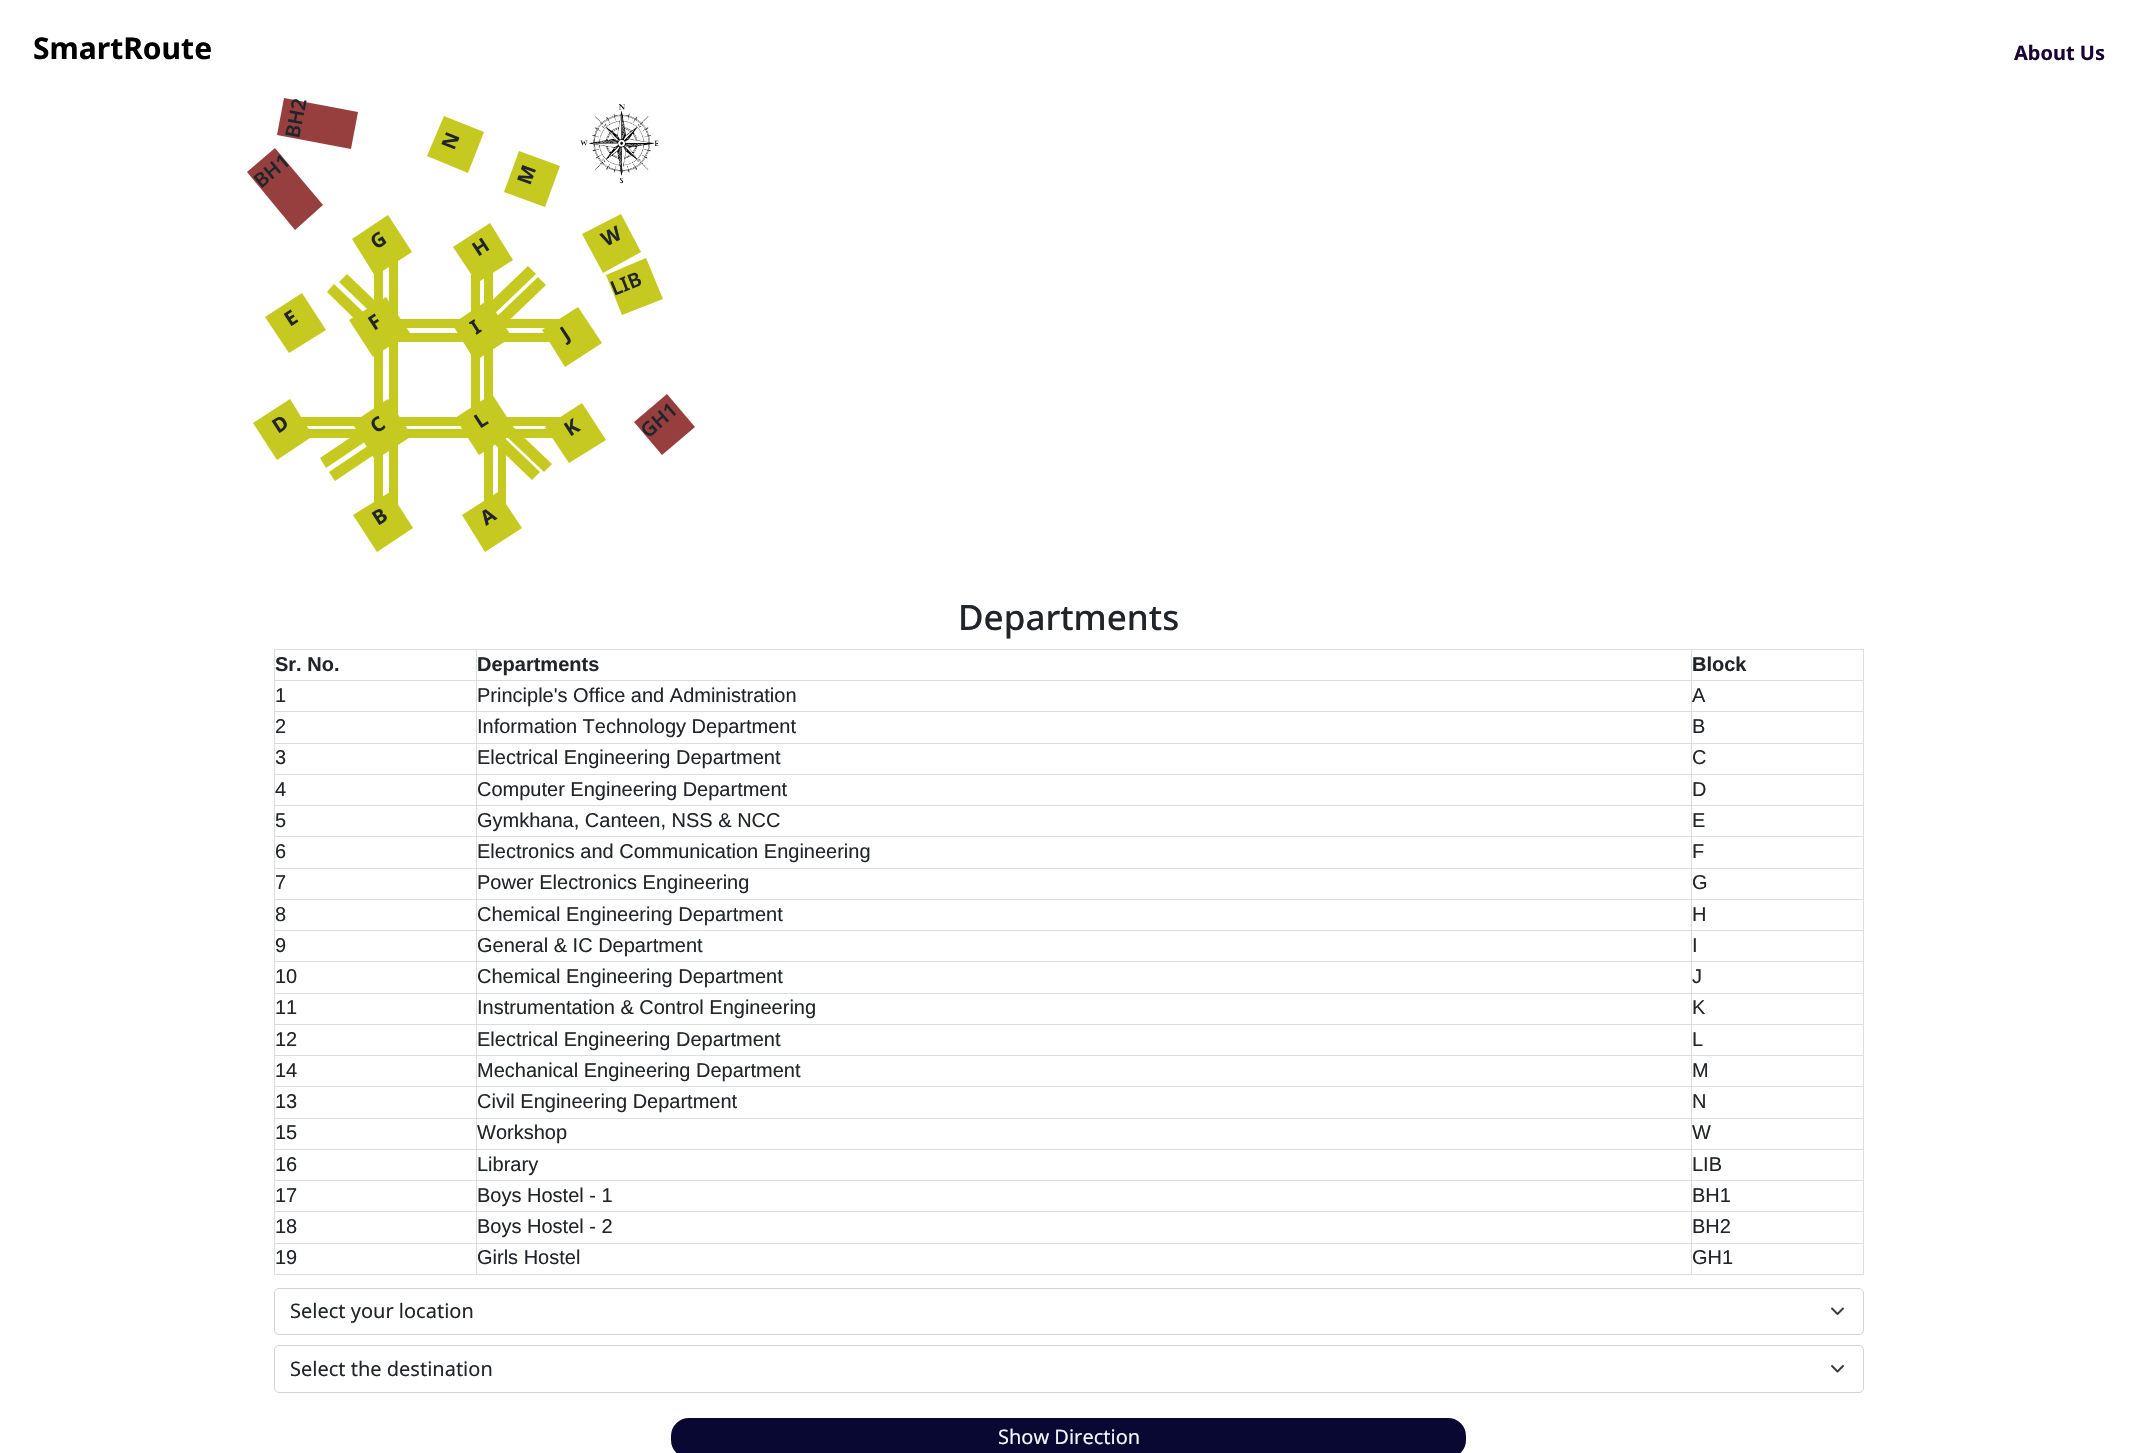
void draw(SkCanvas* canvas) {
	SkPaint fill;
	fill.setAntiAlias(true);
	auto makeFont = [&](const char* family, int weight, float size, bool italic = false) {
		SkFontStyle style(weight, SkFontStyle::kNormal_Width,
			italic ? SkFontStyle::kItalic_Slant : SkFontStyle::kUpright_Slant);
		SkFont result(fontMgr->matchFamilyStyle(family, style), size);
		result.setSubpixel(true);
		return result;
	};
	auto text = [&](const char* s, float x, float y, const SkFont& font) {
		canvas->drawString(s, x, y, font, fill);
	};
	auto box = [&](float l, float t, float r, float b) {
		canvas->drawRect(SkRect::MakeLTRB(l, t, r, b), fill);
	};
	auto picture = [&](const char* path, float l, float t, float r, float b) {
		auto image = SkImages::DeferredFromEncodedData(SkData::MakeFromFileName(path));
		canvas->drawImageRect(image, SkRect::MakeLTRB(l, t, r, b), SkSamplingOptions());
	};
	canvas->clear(0xFFFFFFFF);
	picture("image0.png", 259, 101, 671, 514);
	fill.setColor(0xFF973F3F);
	canvas->drawPath(SkPathBuilder().moveTo(247, 172).lineTo(275, 148).lineTo(323, 205).lineTo(295, 230).close().detach(), fill);
	canvas->drawPath(SkPathBuilder().moveTo(277, 135).lineTo(284, 98).lineTo(358, 112).lineTo(351, 149).close().detach(), fill);
	fill.setColor(0xFFC6C91F);
	canvas->drawPath(SkPathBuilder().moveTo(427, 156).lineTo(444, 116).lineTo(484, 132).lineTo(468, 173).close().detach(), fill);
	picture("image1.png", 580, 104, 659, 184);
	canvas->drawPath(SkPathBuilder().moveTo(504, 192).lineTo(519, 151).lineTo(560, 166).lineTo(545, 207).close().detach(), fill);
	box(374, 270, 383, 502);
	box(389, 261, 398, 505);
	canvas->drawPath(SkPathBuilder().moveTo(395, 320).lineTo(387, 328).lineTo(339, 282).lineTo(347, 274).close().detach(), fill);
	canvas->drawPath(SkPathBuilder().moveTo(352, 239).lineTo(388, 215).lineTo(412, 252).lineTo(375, 276).close().detach(), fill);
	box(484, 272, 493, 400);
	box(471, 274, 480, 408);
	box(400, 319, 560, 328);
	canvas->drawPath(SkPathBuilder().moveTo(538, 277).lineTo(546, 285).lineTo(498, 331).lineTo(490, 323).close().detach(), fill);
	canvas->drawPath(SkPathBuilder().moveTo(528, 266).lineTo(536, 274).lineTo(488, 320).lineTo(480, 312).close().detach(), fill);
	canvas->drawPath(SkPathBuilder().moveTo(453, 247).lineTo(490, 223).lineTo(513, 260).lineTo(477, 283).close().detach(), fill);
	canvas->drawPath(SkPathBuilder().moveTo(606, 275).lineTo(646, 258).lineTo(663, 299).lineTo(622, 315).close().detach(), fill);
	canvas->drawPath(SkPathBuilder().moveTo(265, 317).lineTo(302, 293).lineTo(326, 330).lineTo(289, 353).close().detach(), fill);
	canvas->drawPath(SkPathBuilder().moveTo(382, 330).lineTo(374, 338).lineTo(327, 292).lineTo(334, 284).close().detach(), fill);
	box(398, 333, 550, 342);
	canvas->drawPath(SkPathBuilder().moveTo(349, 320).lineTo(386, 297).lineTo(410, 333).lineTo(373, 357).close().detach(), fill);
	canvas->drawPath(SkPathBuilder().moveTo(452, 324).lineTo(488, 300).lineTo(512, 337).lineTo(475, 361).close().detach(), fill);
	canvas->drawPath(SkPathBuilder().moveTo(542, 330).lineTo(578, 307).lineTo(602, 343).lineTo(565, 367).close().detach(), fill);
	box(301, 417, 561, 426);
	box(308, 429, 553, 438);
	canvas->drawPath(SkPathBuilder().moveTo(253, 423).lineTo(290, 399).lineTo(313, 436).lineTo(277, 460).close().detach(), fill);
	canvas->drawPath(SkPathBuilder().moveTo(384, 435).lineTo(390, 444).lineTo(335, 481).lineTo(329, 472).close().detach(), fill);
	canvas->drawPath(SkPathBuilder().moveTo(375, 421).lineTo(381, 431).lineTo(326, 468).lineTo(320, 458).close().detach(), fill);
	canvas->drawPath(SkPathBuilder().moveTo(352, 423).lineTo(388, 399).lineTo(412, 436).lineTo(375, 460).close().detach(), fill);
	box(498, 437, 506, 504);
	canvas->drawPath(SkPathBuilder().moveTo(552, 464).lineTo(544, 472).lineTo(504, 434).lineTo(512, 426).close().detach(), fill);
	box(484, 446, 493, 501);
	canvas->drawPath(SkPathBuilder().moveTo(540, 472).lineTo(532, 480).lineTo(484, 434).lineTo(492, 426).close().detach(), fill);
	canvas->drawPath(SkPathBuilder().moveTo(455, 418).lineTo(492, 394).lineTo(516, 431).lineTo(479, 455).close().detach(), fill);
	fill.setColor(0xFF973F3F);
	canvas->drawPath(SkPathBuilder().moveTo(634, 422).lineTo(667, 394).lineTo(695, 427).lineTo(662, 455).close().detach(), fill);
	fill.setColor(0xFFC6C91F);
	canvas->drawPath(SkPathBuilder().moveTo(545, 427).lineTo(582, 403).lineTo(606, 440).lineTo(569, 463).close().detach(), fill);
	canvas->drawPath(SkPathBuilder().moveTo(353, 515).lineTo(390, 492).lineTo(413, 528).lineTo(377, 552).close().detach(), fill);
	canvas->drawPath(SkPathBuilder().moveTo(462, 515).lineTo(498, 492).lineTo(522, 528).lineTo(485, 552).close().detach(), fill);
	fill.setColor(0xFFDDDDDD);
	box(1691, 649, 1864, 650);
	box(1691, 680, 1864, 681);
	box(1691, 711, 1864, 712);
	box(1691, 743, 1864, 744);
	box(1691, 774, 1864, 775);
	box(1691, 805, 1864, 806);
	box(1691, 836, 1864, 837);
	box(1691, 868, 1864, 869);
	box(1691, 899, 1864, 900);
	box(1691, 930, 1864, 931);
	box(1691, 961, 1864, 962);
	box(1691, 993, 1864, 994);
	box(1691, 1024, 1864, 1025);
	box(1691, 1055, 1864, 1056);
	box(1691, 1086, 1864, 1087);
	box(1691, 1118, 1864, 1119);
	box(1691, 1149, 1864, 1150);
	box(1691, 1180, 1864, 1181);
	box(1691, 1211, 1864, 1212);
	box(1691, 1243, 1864, 1244);
	box(1863, 1243, 1864, 1275);
	box(1691, 1274, 1864, 1275);
	box(1691, 1243, 1692, 1275);
	box(476, 1243, 1693, 1244);
	box(1691, 1211, 1692, 1244);
	box(476, 1211, 1693, 1212);
	box(1691, 1180, 1692, 1213);
	box(476, 1180, 1693, 1181);
	box(1691, 1149, 1692, 1181);
	box(476, 1149, 1693, 1150);
	box(1691, 1118, 1692, 1150);
	box(476, 1118, 1693, 1119);
	box(1691, 1086, 1692, 1119);
	box(476, 1086, 1693, 1087);
	box(1691, 1055, 1692, 1088);
	box(476, 1055, 1693, 1056);
	box(1691, 1024, 1692, 1056);
	box(476, 1024, 1693, 1025);
	box(1691, 993, 1692, 1025);
	box(476, 993, 1693, 994);
	box(1691, 961, 1692, 994);
	box(476, 961, 1693, 962);
	box(1691, 930, 1692, 963);
	box(476, 930, 1693, 931);
	box(1691, 899, 1692, 931);
	box(476, 899, 1693, 900);
	box(1691, 868, 1692, 900);
	box(476, 868, 1693, 869);
	box(1691, 836, 1692, 869);
	box(476, 836, 1693, 837);
	box(1691, 805, 1692, 838);
	box(476, 805, 1693, 806);
	box(1691, 774, 1692, 806);
	box(476, 774, 1693, 775);
	box(1691, 743, 1692, 775);
	box(476, 743, 1693, 744);
	box(1691, 711, 1692, 744);
	box(476, 711, 1693, 712);
	box(1691, 680, 1692, 713);
	box(476, 680, 1693, 681);
	box(1691, 649, 1692, 681);
	box(476, 649, 1693, 650);
	box(476, 1274, 1693, 1275);
	box(476, 1243, 477, 1275);
	box(274, 1243, 478, 1244);
	box(476, 1211, 477, 1244);
	box(274, 1211, 478, 1212);
	box(476, 1180, 477, 1213);
	box(274, 1180, 478, 1181);
	box(476, 1149, 477, 1181);
	box(274, 1149, 478, 1150);
	box(476, 1118, 477, 1150);
	box(274, 1118, 478, 1119);
	box(476, 1086, 477, 1119);
	box(274, 1086, 478, 1087);
	box(476, 1055, 477, 1088);
	box(274, 1055, 478, 1056);
	box(476, 1024, 477, 1056);
	box(274, 1024, 478, 1025);
	box(476, 993, 477, 1025);
	box(274, 993, 478, 994);
	box(476, 961, 477, 994);
	box(274, 961, 478, 962);
	box(476, 930, 477, 963);
	box(274, 930, 478, 931);
	box(476, 899, 477, 931);
	box(274, 899, 478, 900);
	box(476, 868, 477, 900);
	box(274, 868, 478, 869);
	box(476, 836, 477, 869);
	box(274, 836, 478, 837);
	box(476, 805, 477, 838);
	box(274, 805, 478, 806);
	box(476, 774, 477, 806);
	box(274, 774, 478, 775);
	box(476, 743, 477, 775);
	box(274, 743, 478, 744);
	box(476, 711, 477, 744);
	box(274, 711, 478, 712);
	box(476, 680, 477, 713);
	box(274, 680, 478, 681);
	box(476, 649, 477, 681);
	box(274, 649, 478, 650);
	box(274, 1274, 478, 1275);
	box(274, 1243, 275, 1275);
	box(274, 1211, 275, 1244);
	box(274, 1180, 275, 1213);
	box(274, 1149, 275, 1181);
	box(274, 1118, 275, 1150);
	box(274, 1086, 275, 1119);
	box(274, 1055, 275, 1088);
	box(274, 1024, 275, 1056);
	box(274, 993, 275, 1025);
	box(274, 961, 275, 994);
	box(274, 930, 275, 963);
	box(274, 899, 275, 931);
	box(274, 868, 275, 900);
	box(274, 836, 275, 869);
	box(274, 805, 275, 838);
	box(274, 774, 275, 806);
	box(274, 743, 275, 775);
	box(274, 711, 275, 744);
	box(274, 680, 275, 713);
	box(274, 649, 275, 681);
	box(1863, 1211, 1864, 1244);
	box(1863, 1180, 1864, 1213);
	box(1863, 1149, 1864, 1181);
	box(1863, 1118, 1864, 1150);
	box(1863, 1086, 1864, 1119);
	box(1863, 1055, 1864, 1088);
	box(1863, 1024, 1864, 1056);
	box(1863, 993, 1864, 1025);
	box(1863, 961, 1864, 994);
	box(1863, 930, 1864, 963);
	box(1863, 899, 1864, 931);
	box(1863, 868, 1864, 900);
	box(1863, 836, 1864, 869);
	box(1863, 805, 1864, 838);
	box(1863, 774, 1864, 806);
	box(1863, 743, 1864, 775);
	box(1863, 711, 1864, 744);
	box(1863, 680, 1864, 713);
	box(1863, 649, 1864, 681);
	fill.setStyle(SkPaint::kStroke_Style);
	fill.setStrokeWidth(1.9f);
	fill.setStrokeCap(SkPaint::kRound_Cap);
	fill.setStrokeJoin(SkPaint::kRound_Join);
	fill.setColor(0xFF343A40);
	canvas->drawPath(SkPathBuilder().moveTo(1832, 1308.5f).lineTo(1837.5f, 1314).lineTo(1843, 1308.5f).detach(), fill);
	fill.setStrokeWidth(1);
	fill.setStrokeCap(SkPaint::kButt_Cap);
	fill.setStrokeJoin(SkPaint::kMiter_Join);
	fill.setColor(0xFFCED4DA);
	canvas->drawRoundRect(SkRect::MakeLTRB(274.5f, 1288.5f, 1863.5f, 1334.5f), 4.5f, 4.5f, fill);
	fill.setStrokeWidth(1.9f);
	fill.setStrokeCap(SkPaint::kRound_Cap);
	fill.setStrokeJoin(SkPaint::kRound_Join);
	fill.setColor(0xFF343A40);
	canvas->drawPath(SkPathBuilder().moveTo(1832, 1366).lineTo(1837.5f, 1371.5f).lineTo(1843, 1366).detach(), fill);
	fill.setStrokeWidth(1);
	fill.setStrokeCap(SkPaint::kButt_Cap);
	fill.setStrokeJoin(SkPaint::kMiter_Join);
	fill.setColor(0xFFCED4DA);
	canvas->drawRoundRect(SkRect::MakeLTRB(274.5f, 1345.5f, 1863.5f, 1392.5f), 4.5f, 4.5f, fill);
	fill.setStyle(SkPaint::kFill_Style);
	fill.setColor(0xFF080833);
	canvas->drawRoundRect(SkRect::MakeLTRB(672.5f, 1419.5f, 1464.5f, 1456.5f), 16.5f, 16.5f, fill);
	fill.setStyle(SkPaint::kStroke_Style);
	fill.setStrokeWidth(3);
	canvas->drawRoundRect(SkRect::MakeLTRB(672.5f, 1419.5f, 1464.5f, 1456.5f), 16.5f, 16.5f, fill);
	auto font1 = makeFont("Noto Sans", 700, 30);
	fill.setStyle(SkPaint::kFill_Style);
	fill.setColor(0xFF000000);
	text("SmartRoute", 33, 59, font1);
	auto font2 = makeFont("Noto Sans", 700, 20);
	fill.setColor(0xFF190435);
	text("About Us", 2014, 60, font2);
	auto font3 = makeFont("Noto Sans", 600, 20);
	fill.setColor(0xFF212529);
	canvas->save();
	canvas->rotate(-79, 299, 139);
	text("BH2", 299, 139, font3);
	canvas->restore();
	canvas->save();
	canvas->rotate(-68, 454, 151);
	text("N", 454, 151, font2);
	canvas->restore();
	canvas->save();
	canvas->rotate(-40, 261, 189);
	text("BH1", 261, 189, font3);
	canvas->restore();
	canvas->save();
	canvas->rotate(-70, 530, 186);
	text("M", 530, 186, font2);
	canvas->restore();
	canvas->save();
	canvas->rotate(-33, 376, 250);
	text("G", 376, 250, font2);
	canvas->restore();
	canvas->save();
	canvas->rotate(-33, 478, 257);
	text("H", 478, 257, font2);
	canvas->restore();
	canvas->save();
	canvas->rotate(-22, 614, 296);
	text("LIB", 614, 296, font3);
	canvas->restore();
	fill.setColor(0xFFC6C91F);
	canvas->drawPath(SkPathBuilder().moveTo(582, 234).lineTo(621, 214).lineTo(641, 252).lineTo(603, 273).close().detach(), fill);
	fill.setColor(0xFF212529);
	canvas->save();
	canvas->rotate(-28, 606, 247);
	text("W", 606, 247, font2);
	canvas->restore();
	canvas->save();
	canvas->rotate(-33, 290, 327);
	text("E", 290, 327, font2);
	canvas->restore();
	canvas->save();
	canvas->rotate(-33, 374, 331);
	text("F", 374, 331, font2);
	canvas->restore();
	canvas->save();
	canvas->rotate(-33, 476, 335);
	text("I", 476, 335, font2);
	canvas->restore();
	canvas->save();
	canvas->rotate(-33, 566, 341);
	text("J", 566, 341, font2);
	canvas->restore();
	canvas->save();
	canvas->rotate(-33, 278, 434);
	text("D", 278, 434, font2);
	canvas->restore();
	canvas->save();
	canvas->rotate(-33, 376, 434);
	text("C", 376, 434, font2);
	canvas->restore();
	canvas->save();
	canvas->rotate(-33, 480, 429);
	text("L", 480, 429, font2);
	canvas->restore();
	canvas->save();
	canvas->rotate(-41, 648, 439);
	text("GH1", 648, 439, font3);
	canvas->restore();
	canvas->save();
	canvas->rotate(-33, 570, 437);
	text("K", 570, 437, font2);
	canvas->restore();
	canvas->save();
	canvas->rotate(-33, 378, 526);
	text("B", 378, 526, font2);
	canvas->restore();
	canvas->save();
	canvas->rotate(-33, 486, 526);
	text("A", 486, 526, font2);
	canvas->restore();
	auto font4 = makeFont("Noto Sans", 500, 35);
	text("Departments", 958, 630, font4);
	auto font5 = makeFont("Liberation Sans", 700, 20);
	text("Sr. No.", 275, 671, font5);
	text("Departments", 477, 671, font5);
	text("Block", 1692, 671, font5);
	auto font6 = makeFont("Liberation Sans", 400, 20);
	text("1", 275, 702, font6);
	text("Principle's Office and Administration", 477, 702, font6);
	text("A", 1692, 702, font6);
	text("2", 275, 733, font6);
	text("Information Technology Department", 477, 733, font6);
	text("B", 1692, 733, font6);
	text("3", 275, 764, font6);
	text("Electrical Engineering Department", 477, 764, font6);
	text("C", 1692, 764, font6);
	text("4", 275, 796, font6);
	text("Computer Engineering Department", 477, 796, font6);
	text("D", 1692, 796, font6);
	text("5", 275, 827, font6);
	text("Gymkhana, Canteen, NSS & NCC", 477, 827, font6);
	text("E", 1692, 827, font6);
	text("6", 275, 858, font6);
	text("Electronics and Communication Engineering", 477, 858, font6);
	text("F", 1692, 858, font6);
	text("7", 275, 889, font6);
	text("Power Electronics Engineering", 477, 889, font6);
	text("G", 1692, 889, font6);
	text("8", 275, 921, font6);
	text("Chemical Engineering Department", 477, 921, font6);
	text("H", 1692, 921, font6);
	text("9", 275, 952, font6);
	text("General & IC Department", 477, 952, font6);
	text("I", 1692, 952, font6);
	text("10", 275, 983, font6);
	text("Chemical Engineering Department", 477, 983, font6);
	text("J", 1692, 983, font6);
	text("11", 275, 1014, font6);
	text("Instrumentation & Control Engineering", 477, 1014, font6);
	text("K", 1692, 1014, font6);
	text("12", 275, 1046, font6);
	text("Electrical Engineering Department", 477, 1046, font6);
	text("L", 1692, 1046, font6);
	text("14", 275, 1077, font6);
	text("Mechanical Engineering Department", 477, 1077, font6);
	text("M", 1692, 1077, font6);
	text("13", 275, 1108, font6);
	text("Civil Engineering Department", 477, 1108, font6);
	text("N", 1692, 1108, font6);
	text("15", 275, 1139, font6);
	text("Workshop", 477, 1139, font6);
	text("W", 1692, 1139, font6);
	text("16", 275, 1171, font6);
	text("Library", 477, 1171, font6);
	text("LIB", 1692, 1171, font6);
	text("17", 275, 1202, font6);
	text("Boys Hostel - 1", 477, 1202, font6);
	text("BH1", 1692, 1202, font6);
	text("18", 275, 1233, font6);
	text("Boys Hostel - 2", 477, 1233, font6);
	text("BH2", 1692, 1233, font6);
	text("19", 275, 1264, font6);
	text("Girls Hostel", 477, 1264, font6);
	text("GH1", 1692, 1264, font6);
	auto font7 = makeFont("Noto Sans", 400, 20);
	text("Select your location", 290, 1318, font7);
	text("Select the destination", 290, 1376, font7);
	fill.setColor(0xFFF0F8FF);
	text("Show Direction", 998, 1444, font7);
}
